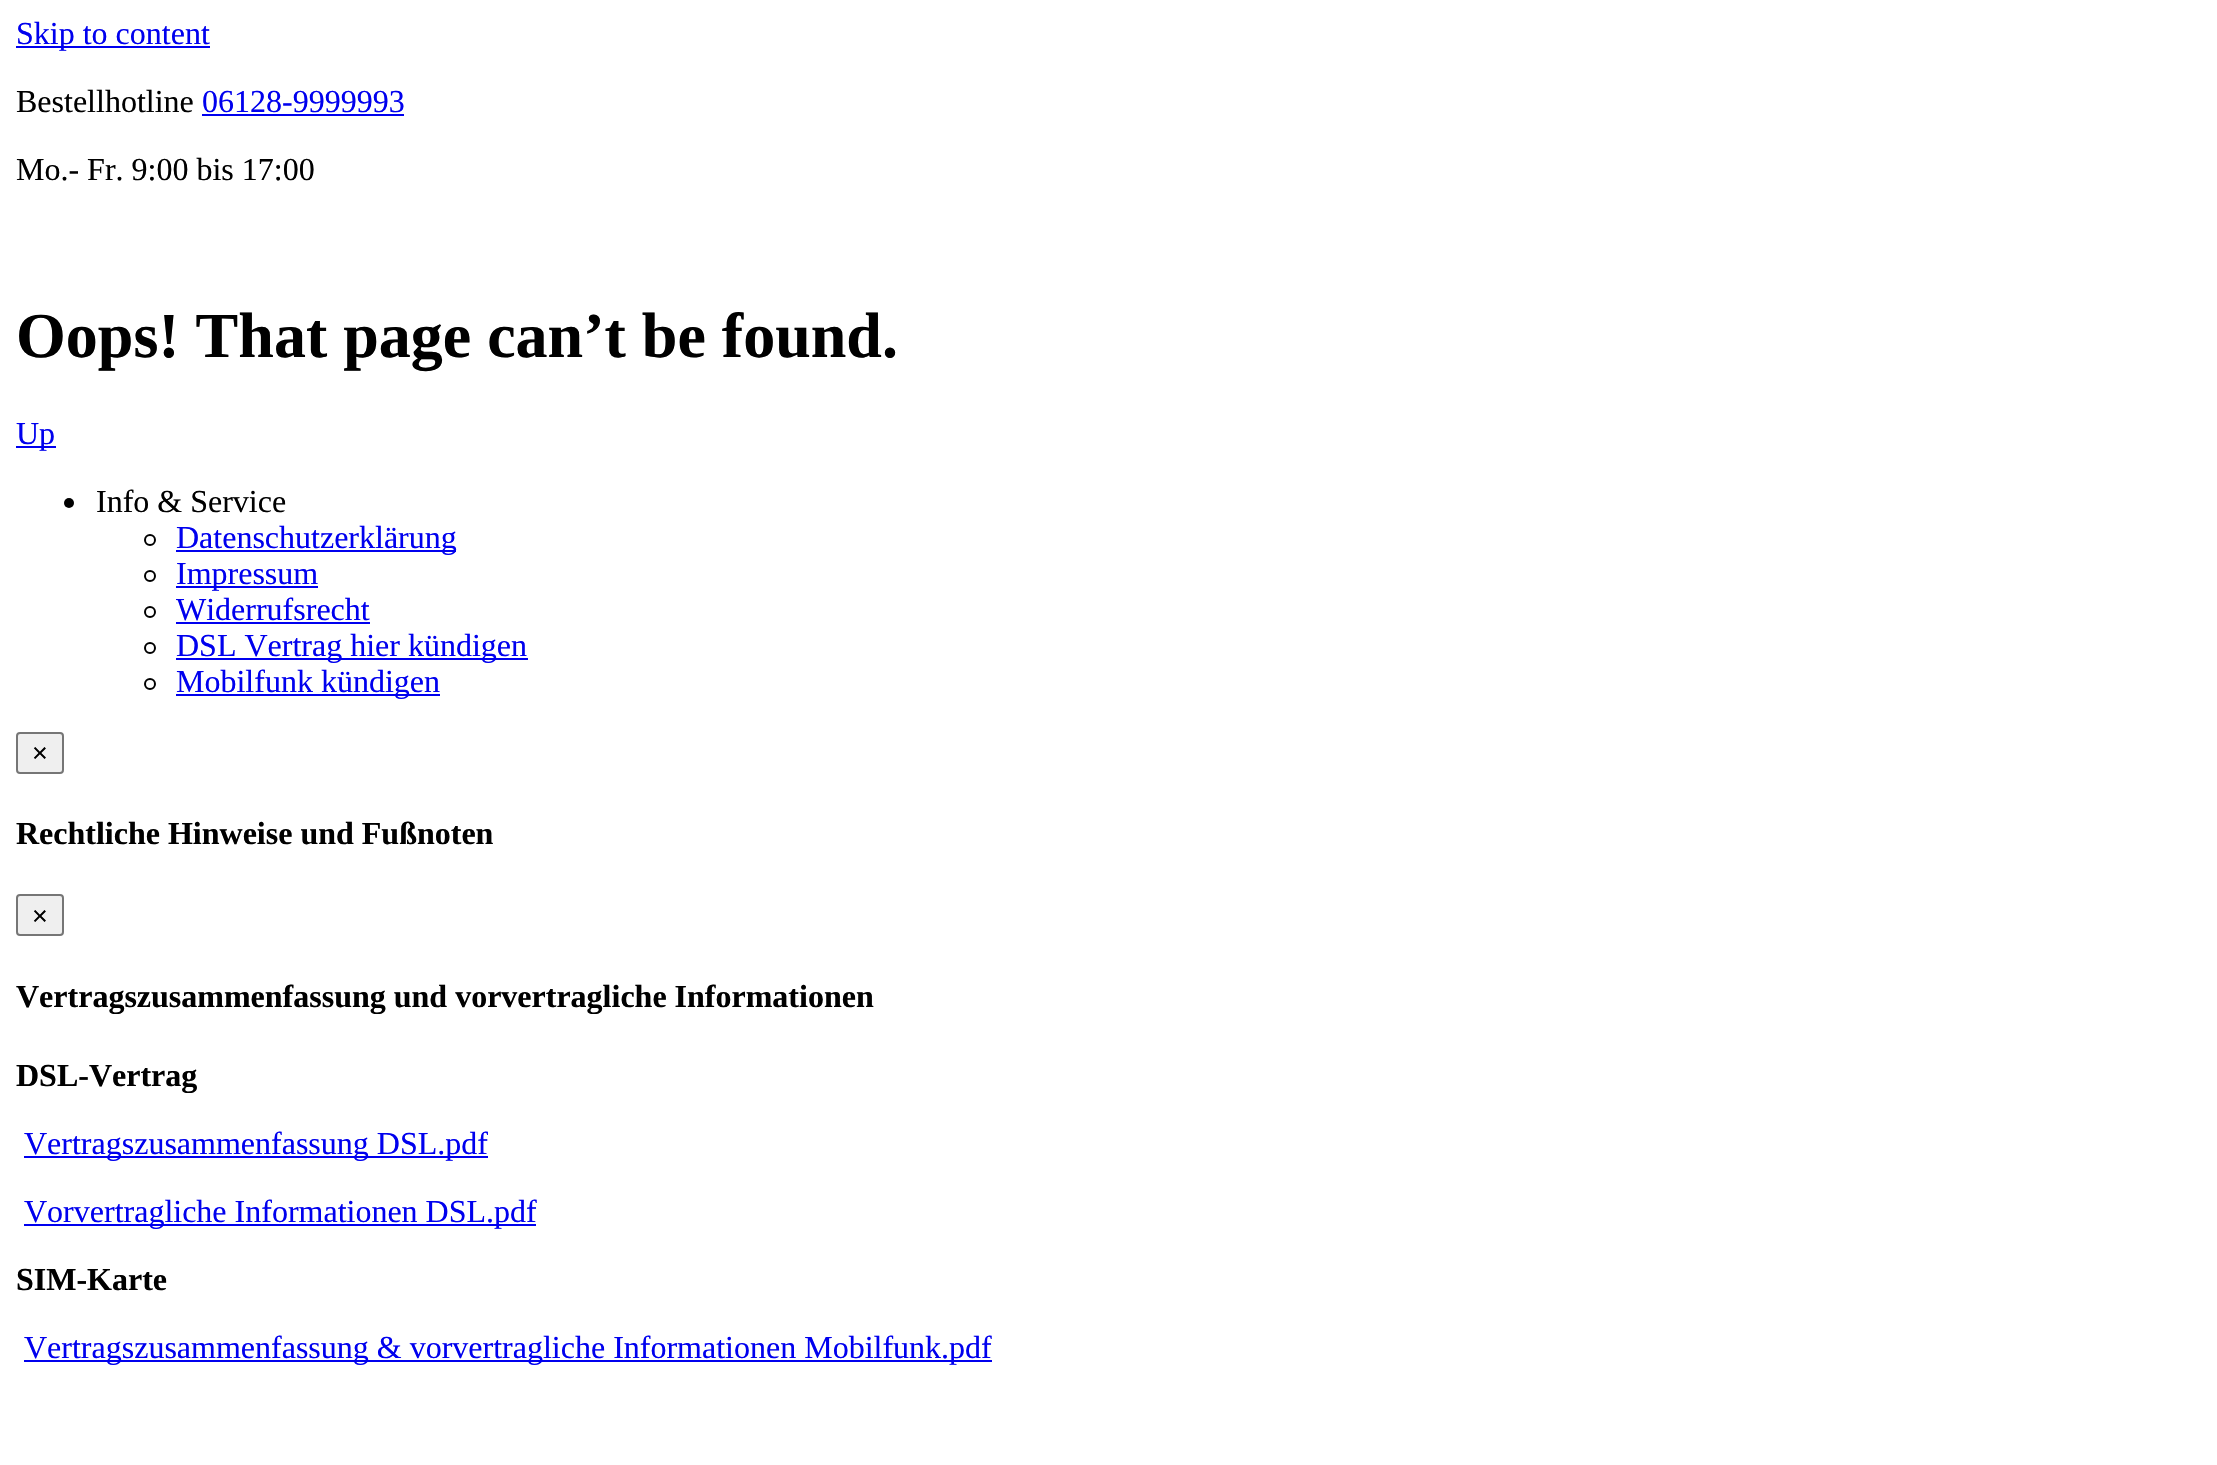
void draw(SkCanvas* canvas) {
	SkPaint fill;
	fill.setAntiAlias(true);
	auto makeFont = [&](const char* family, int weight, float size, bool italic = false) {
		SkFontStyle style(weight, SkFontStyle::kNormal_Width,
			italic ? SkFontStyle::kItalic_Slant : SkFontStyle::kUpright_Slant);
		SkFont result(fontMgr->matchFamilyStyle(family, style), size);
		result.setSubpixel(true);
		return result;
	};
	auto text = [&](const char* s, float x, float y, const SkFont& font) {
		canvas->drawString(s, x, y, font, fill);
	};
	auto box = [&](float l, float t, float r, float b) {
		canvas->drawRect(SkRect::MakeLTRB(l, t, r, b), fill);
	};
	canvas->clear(0xFFFFFFFF);
	fill.setColor(0xFF0000EE);
	box(16, 46, 210, 48);
	box(202, 114, 404, 116);
	box(16, 446, 56, 448);
	fill.setColor(0xFF000000);
	canvas->drawCircle(69, 503, 5, fill);
	fill.setStyle(SkPaint::kStroke_Style);
	fill.setStrokeWidth(2);
	canvas->drawCircle(150, 540, 5, fill);
	fill.setStyle(SkPaint::kFill_Style);
	fill.setColor(0xFF0000EE);
	box(176, 550, 456, 552);
	fill.setStyle(SkPaint::kStroke_Style);
	fill.setColor(0xFF000000);
	canvas->drawCircle(150, 576, 5, fill);
	fill.setStyle(SkPaint::kFill_Style);
	fill.setColor(0xFF0000EE);
	box(176, 586, 318, 588);
	fill.setStyle(SkPaint::kStroke_Style);
	fill.setColor(0xFF000000);
	canvas->drawCircle(150, 612, 5, fill);
	fill.setStyle(SkPaint::kFill_Style);
	fill.setColor(0xFF0000EE);
	box(176, 622, 370, 624);
	fill.setStyle(SkPaint::kStroke_Style);
	fill.setColor(0xFF000000);
	canvas->drawCircle(150, 648, 5, fill);
	fill.setStyle(SkPaint::kFill_Style);
	fill.setColor(0xFF0000EE);
	box(176, 658, 528, 660);
	fill.setStyle(SkPaint::kStroke_Style);
	fill.setColor(0xFF000000);
	canvas->drawCircle(150, 684, 5, fill);
	fill.setStyle(SkPaint::kFill_Style);
	fill.setColor(0xFF0000EE);
	box(176, 694, 440, 696);
	fill.setColor(0xFFEFEFEF);
	canvas->drawRoundRect(SkRect::MakeLTRB(17, 733, 63, 773), 3, 3, fill);
	fill.setStyle(SkPaint::kStroke_Style);
	fill.setColor(0xFF767676);
	canvas->drawRoundRect(SkRect::MakeLTRB(17, 733, 63, 773), 3, 3, fill);
	fill.setStyle(SkPaint::kFill_Style);
	fill.setColor(0xFFEFEFEF);
	canvas->drawRoundRect(SkRect::MakeLTRB(17, 895, 63, 935), 3, 3, fill);
	fill.setStyle(SkPaint::kStroke_Style);
	fill.setColor(0xFF767676);
	canvas->drawRoundRect(SkRect::MakeLTRB(17, 895, 63, 935), 3, 3, fill);
	fill.setStyle(SkPaint::kFill_Style);
	fill.setColor(0xFF0000EE);
	box(24, 1156, 488, 1158);
	box(24, 1224, 536, 1226);
	box(24, 1360, 992, 1362);
	auto font1 = makeFont("Liberation Serif", 400, 32);
	text("Skip to content", 16, 44, font1);
	fill.setColor(0xFF000000);
	text("Bestellhotline", 16, 112, font1);
	fill.setColor(0xFF0000EE);
	text("06128-9999993", 202, 112, font1);
	fill.setColor(0xFF000000);
	text("Mo.- Fr. 9:00 bis 17:00", 16, 180, font1);
	auto font2 = makeFont("Liberation Serif", 700, 64);
	text("Oops! That page can’t be found.", 16, 357, font2);
	fill.setColor(0xFF0000EE);
	text("Up", 16, 444, font1);
	fill.setColor(0xFF000000);
	text("Info & Service", 96, 512, font1);
	fill.setColor(0xFF0000EE);
	text("Datenschutzerklärung", 176, 548, font1);
	text("Impressum", 176, 584, font1);
	text("Widerrufsrecht", 176, 620, font1);
	text("DSL Vertrag hier kündigen", 176, 656, font1);
	text("Mobilfunk kündigen", 176, 692, font1);
	auto font3 = makeFont("Liberation Sans", 400, 27);
	fill.setColor(0xFF000000);
	text("×", 32, 762, font3);
	auto font4 = makeFont("Liberation Serif", 700, 32);
	text("Rechtliche Hinweise und Fußnoten", 16, 844, font4);
	text("×", 32, 925, font3);
	text("Vertragszusammenfassung und vorvertragliche Informationen", 16, 1007, font4);
	text("DSL-Vertrag", 16, 1086, font4);
	fill.setColor(0xFF0000EE);
	text("Vertragszusammenfassung DSL.pdf", 24, 1154, font1);
	text("Vorvertragliche Informationen DSL.pdf", 24, 1222, font1);
	fill.setColor(0xFF000000);
	text("SIM-Karte", 16, 1290, font4);
	fill.setColor(0xFF0000EE);
	text("Vertragszusammenfassung & vorvertragliche Informationen Mobilfunk.pdf", 24, 1358, font1);
}
